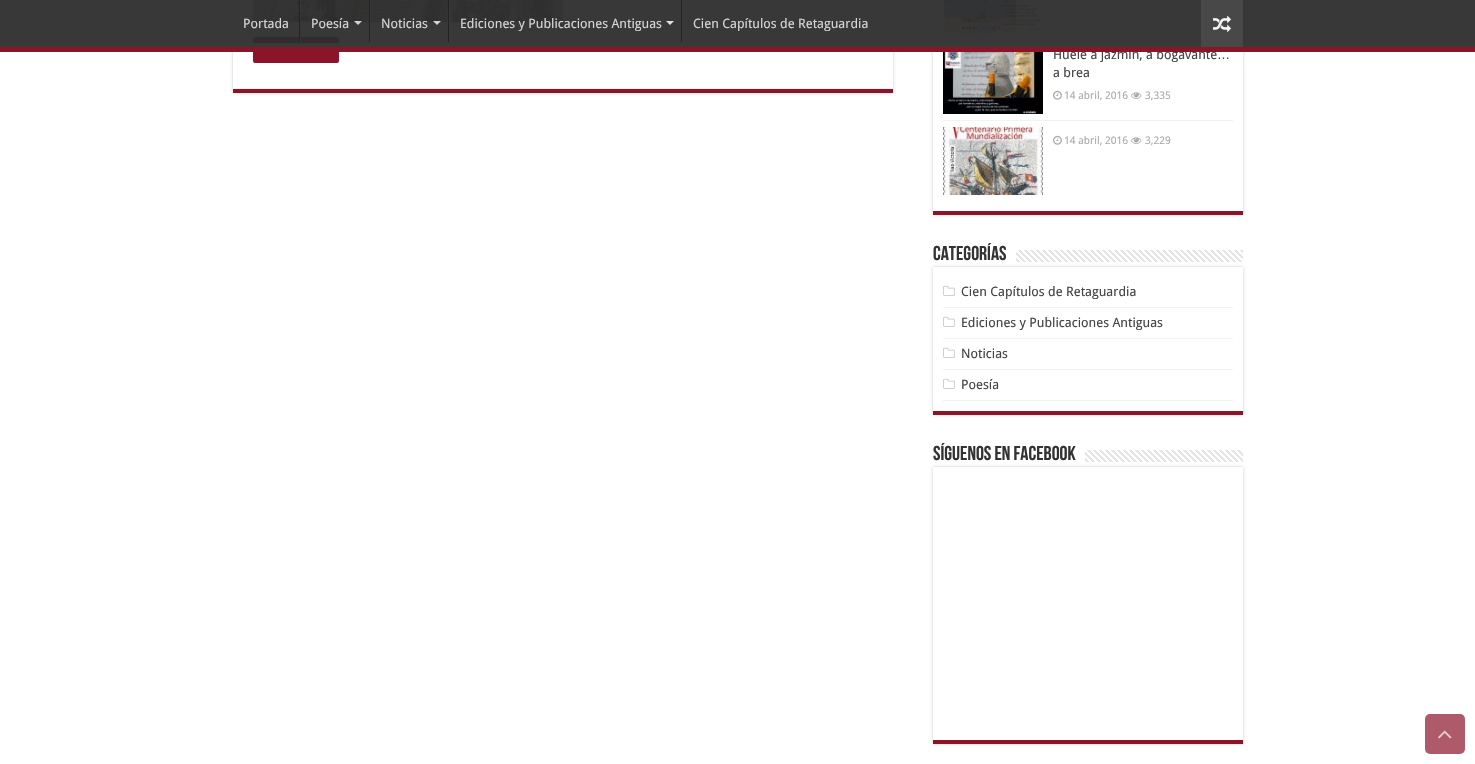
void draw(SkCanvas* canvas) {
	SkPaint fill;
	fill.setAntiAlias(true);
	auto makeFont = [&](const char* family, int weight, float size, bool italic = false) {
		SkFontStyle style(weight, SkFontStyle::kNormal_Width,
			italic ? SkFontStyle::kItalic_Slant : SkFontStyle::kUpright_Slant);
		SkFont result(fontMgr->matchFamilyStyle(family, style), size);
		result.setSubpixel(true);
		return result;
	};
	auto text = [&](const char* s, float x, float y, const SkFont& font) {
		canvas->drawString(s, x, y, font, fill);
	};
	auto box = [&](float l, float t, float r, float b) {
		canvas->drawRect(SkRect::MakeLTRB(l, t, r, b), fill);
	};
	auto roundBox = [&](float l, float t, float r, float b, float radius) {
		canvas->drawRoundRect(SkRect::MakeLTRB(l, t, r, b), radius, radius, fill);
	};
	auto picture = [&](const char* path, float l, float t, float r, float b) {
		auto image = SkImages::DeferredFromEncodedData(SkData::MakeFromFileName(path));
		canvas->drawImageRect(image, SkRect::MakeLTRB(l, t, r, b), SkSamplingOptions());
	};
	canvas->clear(0xFFFFFFFF);
	canvas->save();
	canvas->clipPath(SkPathBuilder(SkPathFillType::kEvenOdd).moveTo(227, 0).lineTo(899, 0).lineTo(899, 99).lineTo(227, 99).close().moveTo(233, -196).lineTo(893, -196).lineTo(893, 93).lineTo(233, 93).close().detach(), true);
	fill.setColor(0xFFCACACA);
	fill.setMaskFilter(SkMaskFilter::MakeBlur(kNormal_SkBlurStyle, 1.5f));
	canvas->drawRect(SkRect::MakeLTRB(233, -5, 893, 93), fill);
	fill.setMaskFilter(nullptr);
	canvas->restore();
	fill.setColor(0xFF8D132A);
	box(233, 89, 893, 93);
	fill.setColor(0xFFF2F2F2);
	box(233, 88, 893, 89);
	picture("image1.png", 253, 0, 563, 22);
	fill.setColor(0xFF8D132A);
	roundBox(253, 37, 339, 63, 2);
	canvas->save();
	canvas->clipPath(SkPathBuilder(SkPathFillType::kEvenOdd).moveTo(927, 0).lineTo(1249, 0).lineTo(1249, 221).lineTo(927, 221).close().moveTo(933, -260).lineTo(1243, -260).lineTo(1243, 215).lineTo(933, 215).close().detach(), true);
	fill.setColor(0xFFCACACA);
	fill.setMaskFilter(SkMaskFilter::MakeBlur(kNormal_SkBlurStyle, 1.5f));
	canvas->drawRect(SkRect::MakeLTRB(933, -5, 1243, 215), fill);
	fill.setMaskFilter(nullptr);
	canvas->restore();
	fill.setColor(0xFF8D132A);
	box(933, 211, 1243, 215);
	fill.setColor(0xFFF2F2F2);
	box(943, 39, 1201, 40);
	picture("image2.png", 943, 0, 1043, 33);
	picture("image3.png", 1055, 0, 1060, 1);
	box(943, 120, 1233, 121);
	picture("image4.png", 943, 46, 1043, 114);
	picture("image5.png", 1053, 90, 1062, 100);
	picture("image6.png", 1131, 92, 1142, 99);
	picture("image7.png", 943, 127, 1043, 195);
	picture("image5.png", 1053, 135, 1062, 145);
	picture("image6.png", 1131, 137, 1142, 144);
	canvas->save();
	canvas->clipPath(SkPathBuilder(SkPathFillType::kEvenOdd).moveTo(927, 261).lineTo(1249, 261).lineTo(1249, 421).lineTo(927, 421).close().moveTo(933, 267).lineTo(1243, 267).lineTo(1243, 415).lineTo(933, 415).close().detach(), true);
	fill.setColor(0xFFCACACA);
	fill.setMaskFilter(SkMaskFilter::MakeBlur(kNormal_SkBlurStyle, 1.5f));
	canvas->drawRect(SkRect::MakeLTRB(933, 267, 1243, 415), fill);
	fill.setMaskFilter(nullptr);
	canvas->restore();
	picture("image8.png", 1016, 250, 1243, 262);
	fill.setColor(0xFF8D132A);
	box(933, 411, 1243, 415);
	fill.setColor(0xFFF2F2F2);
	box(943, 307, 1233, 308);
	picture("image9.png", 943, 285, 955, 296);
	box(943, 338, 1233, 339);
	picture("image9.png", 943, 316, 955, 327);
	box(943, 369, 1233, 370);
	picture("image9.png", 943, 347, 955, 358);
	box(943, 400, 1233, 401);
	picture("image9.png", 943, 378, 955, 389);
	canvas->save();
	canvas->clipPath(SkPathBuilder(SkPathFillType::kEvenOdd).moveTo(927, 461).lineTo(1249, 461).lineTo(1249, 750).lineTo(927, 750).close().moveTo(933, 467).lineTo(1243, 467).lineTo(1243, 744).lineTo(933, 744).close().detach(), true);
	fill.setColor(0xFFCACACA);
	fill.setMaskFilter(SkMaskFilter::MakeBlur(kNormal_SkBlurStyle, 1.5f));
	canvas->drawRect(SkRect::MakeLTRB(933, 467, 1243, 744), fill);
	fill.setMaskFilter(nullptr);
	canvas->restore();
	picture("image10.png", 1085, 450, 1243, 462);
	fill.setColor(0xFF8D132A);
	box(933, 740, 1243, 744);
	fill.setColor(0xFFAF5A6A);
	roundBox(1425, 714, 1465, 754, 5);
	picture("image11.png", 1438, 730, 1452, 739);
	auto font1 = makeFont("Droid Sans", 400, 13);
	fill.setColor(0xFF444444);
	text("Huele a jazmin, a bogavante", 1053, 59, font1);
	fill.setColor(0xF22D2D2D);
	box(0, 0, 1475, 52);
	canvas->save();
	canvas->clipRect(SkRect::MakeLTRB(0, 0, 1475, 47));
	fill.setColor(0xF2393939);
	canvas->drawPath(SkPathBuilder(SkPathFillType::kEvenOdd).moveTo(-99, -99).lineTo(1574, -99).lineTo(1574, 146).lineTo(-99, 146).close().moveTo(-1, -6).lineTo(1474, -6).cubicTo(1475, -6, 1475, -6, 1475, -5).lineTo(1475, 42).cubicTo(1475, 43, 1475, 43, 1474, 43).lineTo(-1, 43).cubicTo(-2, 43, -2, 43, -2, 42).lineTo(-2, -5).cubicTo(-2, -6, -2, -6, -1, -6).close().detach(), fill);
	canvas->restore();
	fill.setColor(0xFF484848);
	box(1201, 0, 1243, 47);
	picture("image0.png", 1213, 15, 1231, 32);
	fill.setColor(0xFFD5D5D5);
	text("Cien Capítulos de Retaguardia", 693, 28, font1);
	fill.setColor(0xF2222222);
	box(681, 0, 682, 42);
	fill.setColor(0xFFDFDFDF);
	canvas->drawPath(SkPathBuilder().moveTo(666, 21).lineTo(674, 21).lineTo(670, 25).close().detach(), fill);
	fill.setColor(0xFFD5D5D5);
	text("Ediciones y Publicaciones Antiguas", 460, 28, font1);
	fill.setColor(0xF2383838);
	box(449, 0, 450, 22);
	fill.setColor(0xF2222222);
	box(448, 0, 449, 42);
	fill.setColor(0xF2DDDDDD);
	canvas->drawPath(SkPathBuilder().moveTo(433, 21).lineTo(441, 21).lineTo(437, 25).close().detach(), fill);
	fill.setColor(0xFFD5D5D5);
	text("Noticias", 381, 28, font1);
	fill.setColor(0xF2383838);
	box(370, 0, 371, 22);
	fill.setColor(0xF2222222);
	box(369, 0, 370, 42);
	fill.setColor(0xF2DDDDDD);
	canvas->drawPath(SkPathBuilder().moveTo(354, 21).lineTo(362, 21).lineTo(358, 25).close().detach(), fill);
	fill.setColor(0xFFD5D5D5);
	text("Poesía", 311, 28, font1);
	fill.setColor(0xF2383838);
	box(300, 0, 301, 42);
	fill.setColor(0xF2222222);
	box(299, 0, 300, 42);
	fill.setColor(0xFFD5D5D5);
	text("Portada", 243, 28, font1);
	fill.setColor(0xF28D132A);
	box(0, 47, 1475, 52);
	auto font2 = makeFont("Liberation Sans", 400, 13);
	fill.setColor(0xFF444444);
	text("…", 1217, 59, font2);
	text("a brea", 1053, 77, font1);
	auto font3 = makeFont("Droid Sans", 400, 10.5f);
	fill.setColor(0xFFAAAAAA);
	text("14 abril, 2016", 1064, 99, font3);
	text("3,335", 1145, 99, font3);
	text("14 abril, 2016", 1064, 144, font3);
	text("3,229", 1145, 144, font3);
	auto font4 = makeFont("Bebas Neue", 700, 20);
	fill.setColor(0xFF333333);
	text("Categorías", 933, 260, font4);
	fill.setColor(0xFF444444);
	text("Cien Capítulos de Retaguardia", 961, 296, font1);
	text("Ediciones y Publicaciones Antiguas", 961, 327, font1);
	text("Noticias", 961, 358, font1);
	text("Poesía", 961, 389, font1);
	fill.setColor(0xFF333333);
	text("Síguenos en Facebook", 933, 460, font4);
}
